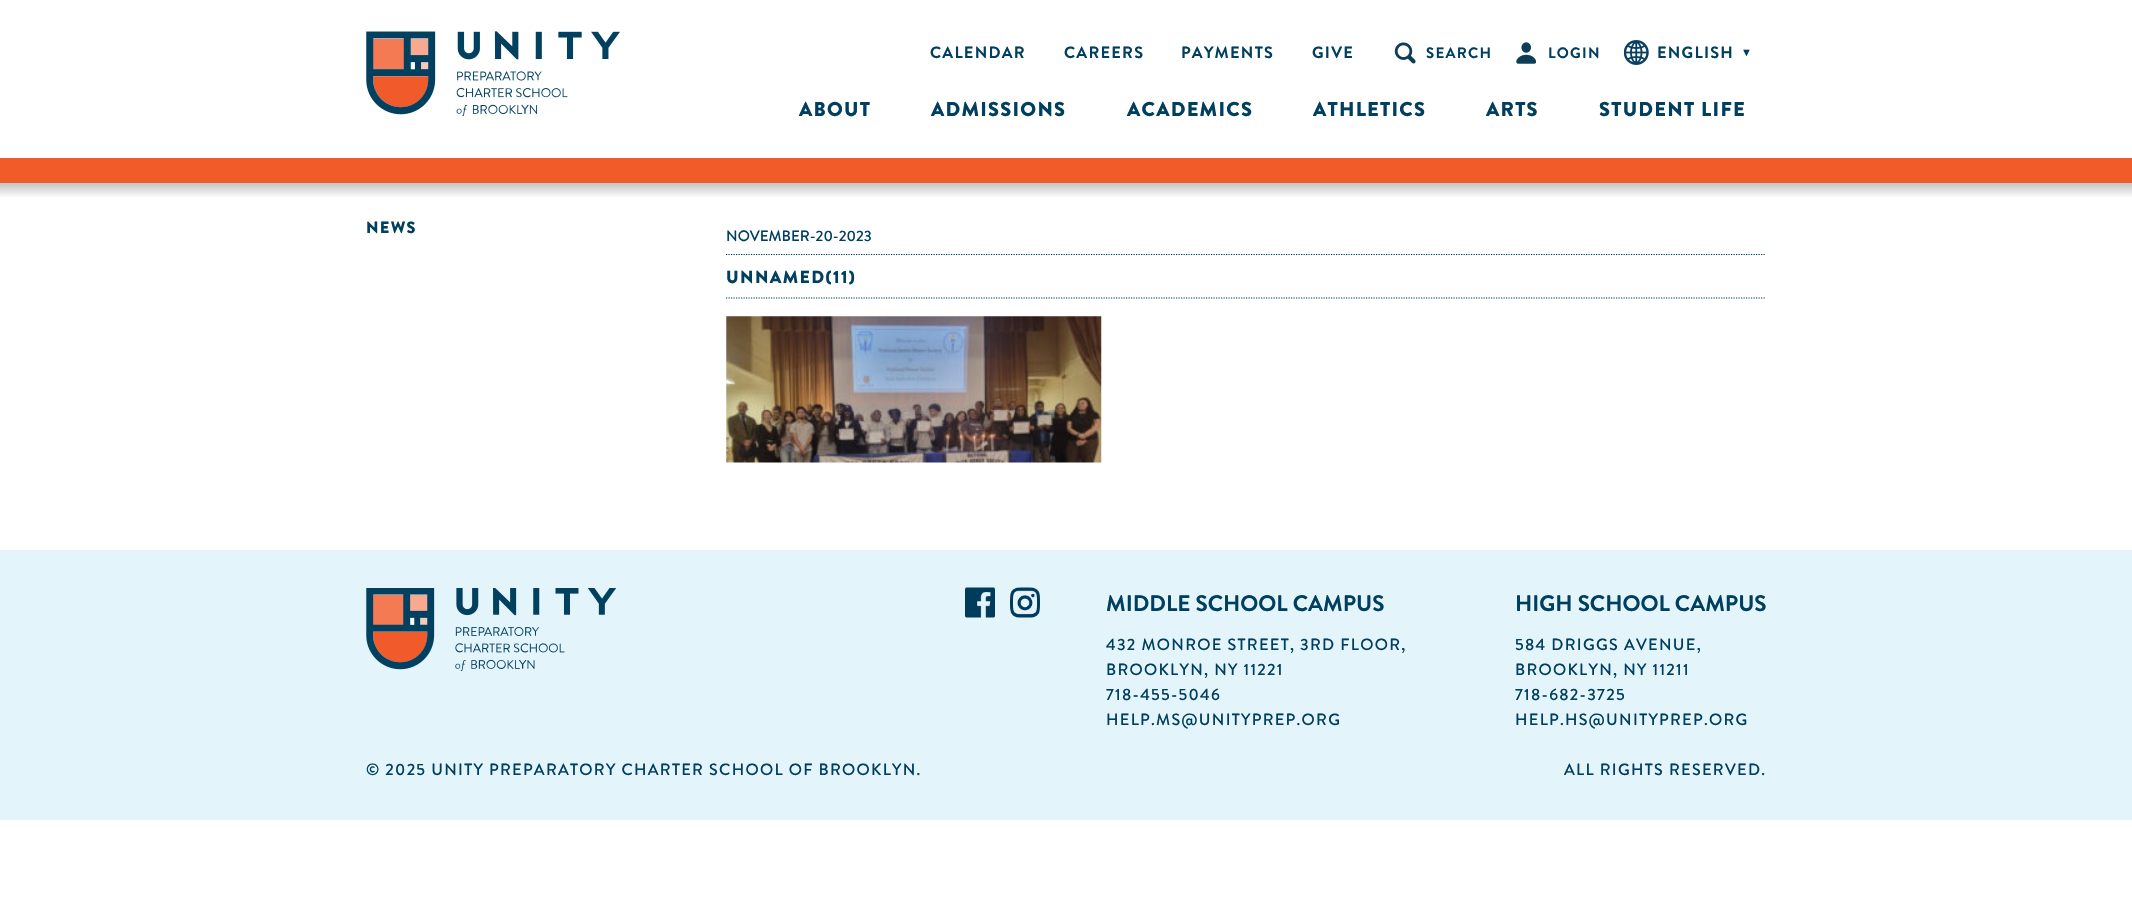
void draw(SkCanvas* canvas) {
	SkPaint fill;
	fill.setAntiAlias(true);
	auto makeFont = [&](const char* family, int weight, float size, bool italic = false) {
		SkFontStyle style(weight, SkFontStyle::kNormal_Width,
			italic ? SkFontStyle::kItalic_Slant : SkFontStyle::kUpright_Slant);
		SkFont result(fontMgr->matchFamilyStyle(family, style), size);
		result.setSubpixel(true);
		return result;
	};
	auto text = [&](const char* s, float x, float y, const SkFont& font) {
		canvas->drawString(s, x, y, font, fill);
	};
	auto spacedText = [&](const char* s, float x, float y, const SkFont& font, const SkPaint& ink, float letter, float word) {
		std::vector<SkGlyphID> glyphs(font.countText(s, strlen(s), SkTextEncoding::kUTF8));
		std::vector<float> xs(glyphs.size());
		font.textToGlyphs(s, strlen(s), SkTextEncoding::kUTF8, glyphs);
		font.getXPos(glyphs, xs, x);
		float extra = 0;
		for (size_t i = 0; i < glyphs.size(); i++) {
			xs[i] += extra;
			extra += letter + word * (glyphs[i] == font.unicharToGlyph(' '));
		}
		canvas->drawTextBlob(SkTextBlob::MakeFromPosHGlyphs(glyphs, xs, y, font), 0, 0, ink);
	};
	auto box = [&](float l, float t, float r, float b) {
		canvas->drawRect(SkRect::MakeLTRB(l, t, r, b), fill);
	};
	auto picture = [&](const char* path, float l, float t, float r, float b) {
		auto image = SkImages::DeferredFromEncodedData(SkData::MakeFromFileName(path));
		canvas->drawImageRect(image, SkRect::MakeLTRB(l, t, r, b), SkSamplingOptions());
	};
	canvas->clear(0xFFFFFFFF);
	picture("image0.png", 366, 31, 620, 116);
	picture("image1.png", 1394, 42, 1416, 64);
	picture("image2.png", 1516, 42, 1536, 64);
	picture("image3.png", 1624, 40, 1649, 65);
	fill.setColor(0xFFF15A29);
	box(0, 158, 2132, 183);
	{
		const SkColor colors[] = {0xFFBFBFBF, 0xFFFFFFFF};
		const float stops[] = {0, 1};
		const SkPoint ends[] = {{1066, 182}, {1066, 198}};
		fill.setShader(SkGradientShader::MakeLinear(ends, colors, stops, 2, SkTileMode::kClamp));
		fill.setAlpha(255);
	}
	box(0, 183, 2132, 197);
	fill.setStyle(SkPaint::kStroke_Style);
	fill.setStrokeWidth(1.2f);
	fill.setShader(nullptr);
	fill.setColor(0xFF003F5F);
	fill.setPathEffect(SkDashPathEffect::Make({{1.25f, 1.25f}}, 0));
	canvas->drawPath(SkPathBuilder().moveTo(726, 254.5f).lineTo(1766, 254.5f).detach(), fill);
	fill.setPathEffect(nullptr);
	fill.setPathEffect(SkDashPathEffect::Make({{1.25f, 1.25f}}, 0));
	canvas->drawPath(SkPathBuilder().moveTo(726, 298).lineTo(1766, 298).detach(), fill);
	fill.setPathEffect(nullptr);
	picture("image4.png", 726, 316, 1102, 463);
	fill.setStyle(SkPaint::kFill_Style);
	fill.setColor(0xFFE3F4FB);
	box(0, 550, 2132, 820);
	picture("image5.png", 366, 588, 616, 671);
	picture("image6.png", 965, 587, 995, 618);
	picture("image7.png", 1010, 587, 1040, 618);
	auto font1 = makeFont("Brandon Grotesque", 700, 16.25f);
	fill.setColor(0xFF003F5F);
	spacedText("CALENDAR", 930, 58, font1, fill, 1.25f, 0);
	spacedText("CAREERS", 1064, 58, font1, fill, 1.25f, 0);
	spacedText("PAYMENTS", 1181, 58, font1, fill, 1.25f, 0);
	spacedText("GIVE", 1312, 58, font1, fill, 1.25f, 0);
	auto font2 = makeFont("Brandon Grotesque", 700, 15);
	spacedText("SEARCH", 1426, 58, font2, fill, 1.25f, 0);
	spacedText("LOGIN", 1548, 58, font2, fill, 1.25f, 0);
	spacedText("ENGLISH", 1657, 58, font1, fill, 1.25f, 0);
	auto font3 = makeFont("Liberation Sans", 700, 11);
	spacedText("▼", 1741, 56, font3, fill, 1.25f, 0);
	auto font4 = makeFont("Brandon Grotesque", 900, 20);
	spacedText("ABOUT", 799, 116, font4, fill, 1.25f, 0);
	spacedText("ADMISSIONS", 931, 116, font4, fill, 1.25f, 0);
	spacedText("ACADEMICS", 1127, 116, font4, fill, 1.25f, 0);
	spacedText("ATHLETICS", 1313, 116, font4, fill, 1.25f, 0);
	spacedText("ARTS", 1486, 116, font4, fill, 1.25f, 0);
	spacedText("STUDENT LIFE", 1599, 116, font4, fill, 1.25f, 0);
	auto font5 = makeFont("Brandon Grotesque", 900, 16.25f);
	spacedText("NEWS", 366, 233, font5, fill, 1.3f, 0);
	auto font6 = makeFont("Brandon Grotesque", 500, 15);
	text("NOVEMBER-20-2023", 726, 241, font6);
	auto font7 = makeFont("Brandon Grotesque", 900, 17.5f);
	spacedText("UNNAMED(11)", 726, 283, font7, fill, 1.4f, 0);
	auto font8 = makeFont("Brandon Grotesque", 700, 22.5f);
	text("MIDDLE SCHOOL CAMPUS", 1106, 611, font8);
	auto font9 = makeFont("Brandon Grotesque", 500, 16.25f);
	spacedText("432 MONROE STREET, 3RD FLOOR,", 1106, 650, font9, fill, 1.3f, 0);
	spacedText("BROOKLYN, NY 11221", 1106, 675, font9, fill, 1.3f, 0);
	spacedText("718-455-5046", 1106, 700, font9, fill, 1.3f, 0);
	spacedText("HELP.MS@UNITYPREP.ORG", 1106, 725, font9, fill, 1.3f, 0);
	text("HIGH SCHOOL CAMPUS", 1515, 611, font8);
	spacedText("584 DRIGGS AVENUE,", 1515, 650, font9, fill, 1.3f, 0);
	spacedText("BROOKLYN, NY 11211", 1515, 675, font9, fill, 1.3f, 0);
	spacedText("718-682-3725", 1515, 700, font9, fill, 1.3f, 0);
	spacedText("HELP.HS@UNITYPREP.ORG", 1515, 725, font9, fill, 1.3f, 0);
	spacedText("© 2025 UNITY PREPARATORY CHARTER SCHOOL OF BROOKLYN.", 366, 775, font9, fill, 1.3f, 0);
	spacedText("ALL RIGHTS RESERVED.", 1564, 775, font9, fill, 1.3f, 0);
}
